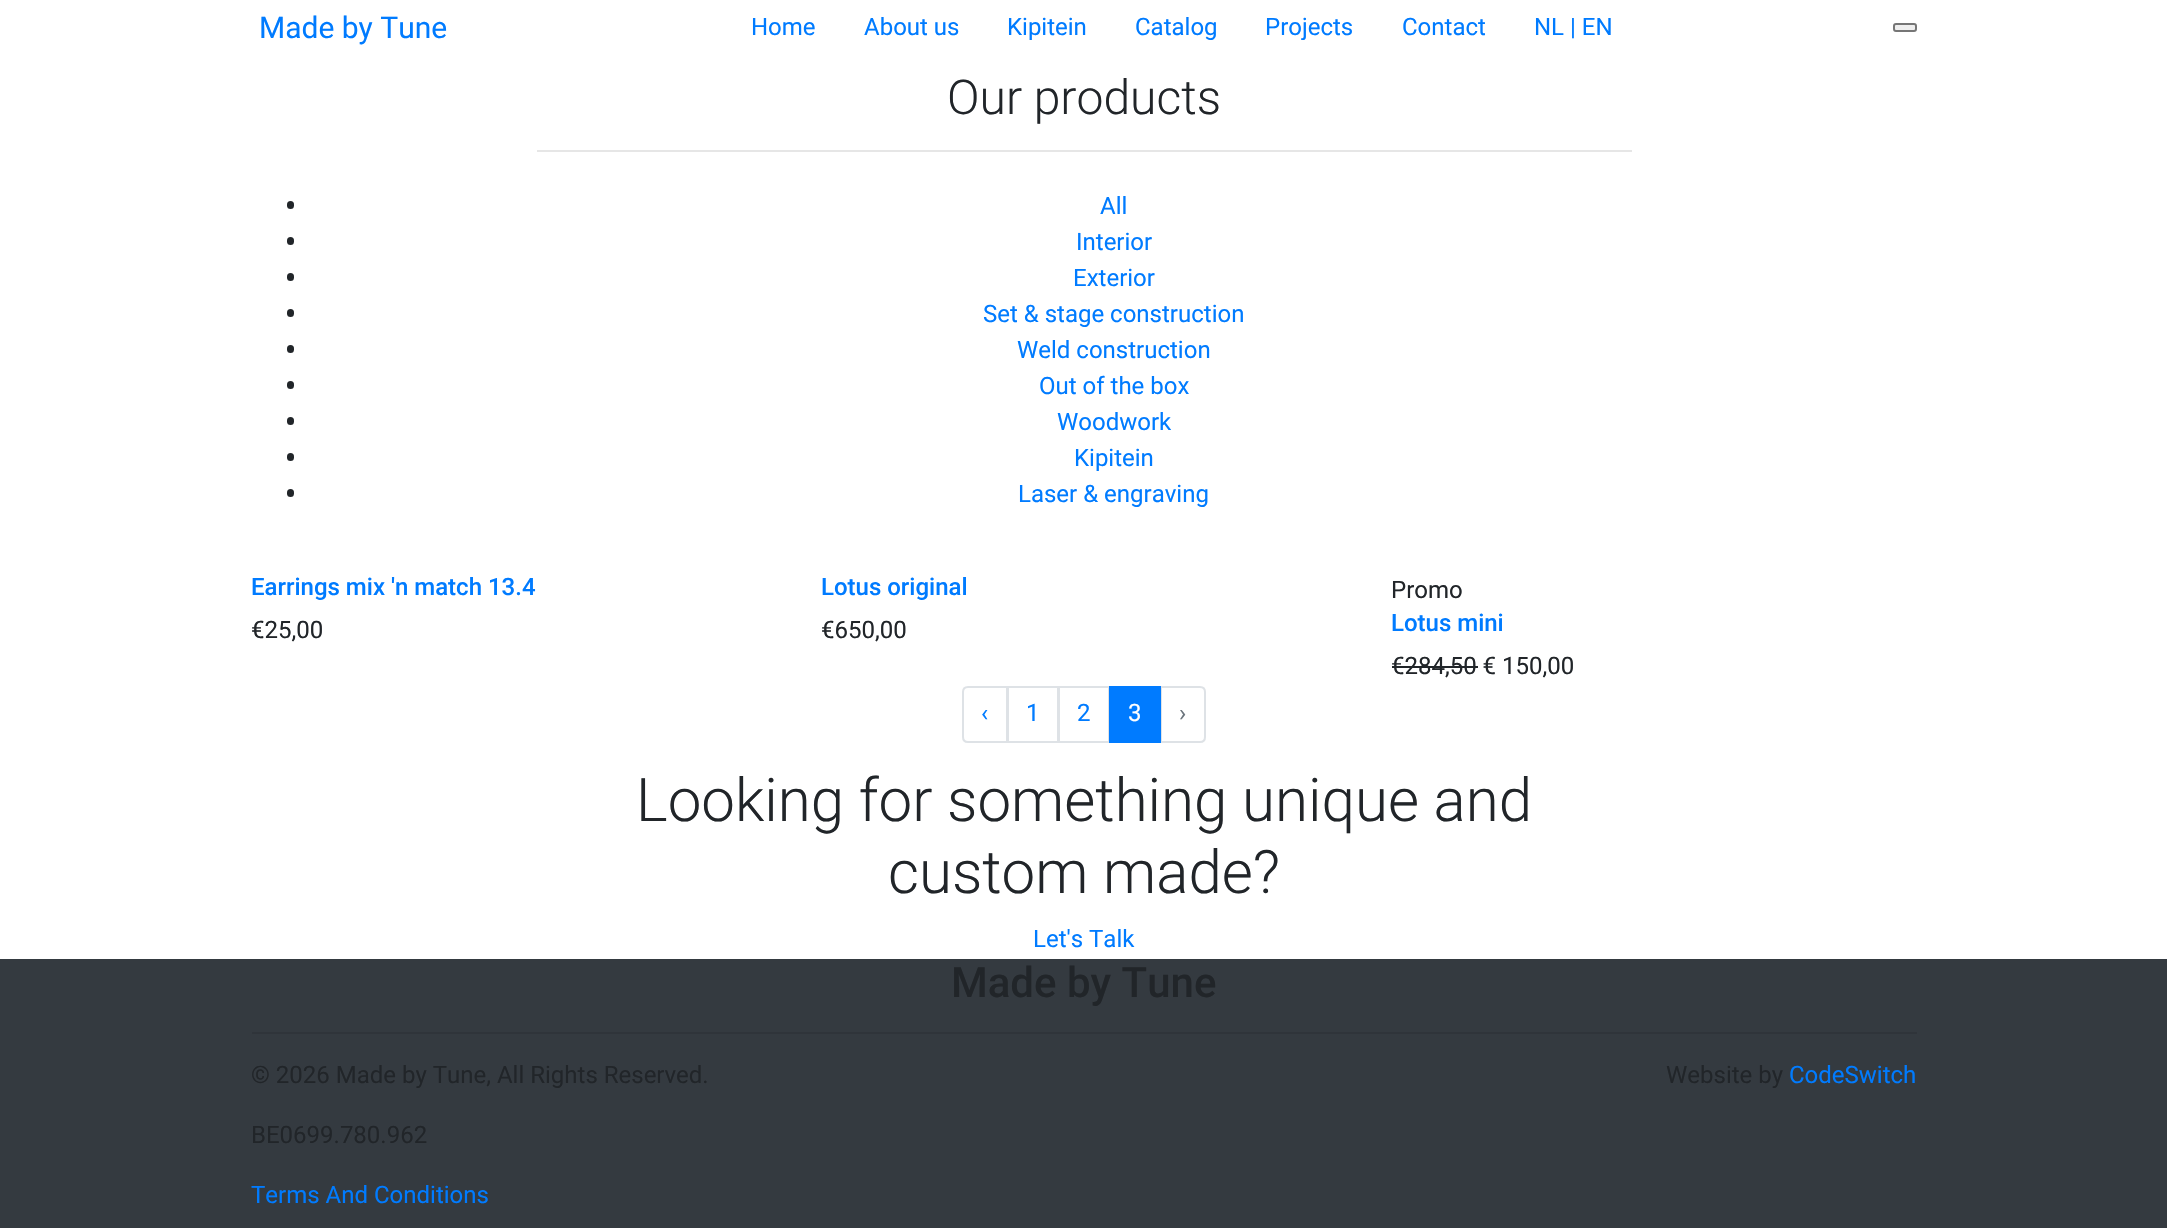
void draw(SkCanvas* canvas) {
	SkPaint fill;
	fill.setAntiAlias(true);
	auto makeFont = [&](const char* family, int weight, float size, bool italic = false) {
		SkFontStyle style(weight, SkFontStyle::kNormal_Width,
			italic ? SkFontStyle::kItalic_Slant : SkFontStyle::kUpright_Slant);
		SkFont result(fontMgr->matchFamilyStyle(family, style), size);
		result.setSubpixel(true);
		return result;
	};
	auto text = [&](const char* s, float x, float y, const SkFont& font) {
		canvas->drawString(s, x, y, font, fill);
	};
	auto box = [&](float l, float t, float r, float b) {
		canvas->drawRect(SkRect::MakeLTRB(l, t, r, b), fill);
	};
	auto roundBox = [&](float l, float t, float r, float b, float radius) {
		canvas->drawRoundRect(SkRect::MakeLTRB(l, t, r, b), radius, radius, fill);
	};
	canvas->clear(0xFFFFFFFF);
	fill.setColor(0xFFEFEFEF);
	canvas->drawRoundRect(SkRect::MakeLTRB(1894, 24, 1916, 31), 2, 2, fill);
	fill.setStyle(SkPaint::kStroke_Style);
	fill.setStrokeWidth(2);
	fill.setColor(0xFF767676);
	canvas->drawRoundRect(SkRect::MakeLTRB(1894, 24, 1916, 31), 2, 2, fill);
	fill.setStyle(SkPaint::kFill_Style);
	fill.setColor(0xFFE6E6E6);
	box(537, 150, 1632, 152);
	fill.setColor(0xFF212529);
	roundBox(287, 201, 294, 209, 3.5f);
	roundBox(287, 237, 294, 245, 3.5f);
	roundBox(287, 273, 294, 281, 3.5f);
	roundBox(287, 309, 294, 317, 3.5f);
	roundBox(287, 345, 294, 353, 3.5f);
	roundBox(287, 381, 294, 389, 3.5f);
	roundBox(287, 417, 294, 425, 3.5f);
	roundBox(287, 453, 294, 461, 3.5f);
	roundBox(287, 489, 294, 497, 3.5f);
	box(1392, 666, 1478, 668);
	fill.setStyle(SkPaint::kStroke_Style);
	fill.setColor(0xFFDEE2E6);
	canvas->drawPath(SkPathBuilder().moveTo(968, 687).lineTo(1007, 687).lineTo(1007, 742).lineTo(968, 742).cubicTo(965, 742, 963, 740, 963, 737).lineTo(963, 692).cubicTo(963, 689, 965, 687, 968, 687).close().detach(), fill);
	canvas->drawRect(SkRect::MakeLTRB(1008, 687, 1058, 742), fill);
	canvas->drawRect(SkRect::MakeLTRB(1059, 687, 1109, 742), fill);
	canvas->drawPath(SkPathBuilder().moveTo(1161, 687).lineTo(1200, 687).cubicTo(1203, 687, 1205, 689, 1205, 692).lineTo(1205, 737).cubicTo(1205, 740, 1203, 742, 1200, 742).lineTo(1161, 742).close().detach(), fill);
	fill.setStyle(SkPaint::kFill_Style);
	fill.setColor(0xFF007BFF);
	box(1109, 686, 1161, 743);
	fill.setColor(0xFF343A40);
	box(0, 959, 2167, 1228);
	fill.setColor(0xFF2F343A);
	box(252, 1032, 1917, 1034);
	auto font1 = makeFont("Roboto", 400, 30);
	fill.setColor(0xFF007BFF);
	text("Made by Tune", 259, 38, font1);
	auto font2 = makeFont("Roboto", 400, 24);
	text("Home", 751, 35, font2);
	text("About us", 864, 35, font2);
	text("Kipitein", 1007, 35, font2);
	text("Catalog", 1135, 35, font2);
	text("Projects", 1265, 35, font2);
	text("Contact", 1402, 35, font2);
	text("NL | EN", 1534, 35, font2);
	auto font3 = makeFont("Roboto", 300, 48);
	fill.setColor(0xFF212529);
	text("Our products", 947, 114, font3);
	fill.setColor(0xFF007BFF);
	text("All", 1100, 214, font2);
	text("Interior", 1076, 250, font2);
	text("Exterior", 1073, 286, font2);
	text("Set & stage construction", 983, 322, font2);
	text("Weld construction", 1017, 358, font2);
	text("Out of the box", 1039, 394, font2);
	text("Woodwork", 1057, 430, font2);
	text("Kipitein", 1074, 466, font2);
	text("Laser & engraving", 1018, 502, font2);
	auto font4 = makeFont("Roboto", 500, 24);
	text("Earrings mix 'n match 13.4", 251, 595, font4);
	fill.setColor(0xFF212529);
	text("€25,00", 251, 638, font2);
	fill.setColor(0xFF007BFF);
	text("Lotus original", 821, 595, font4);
	fill.setColor(0xFF212529);
	text("€650,00", 821, 638, font2);
	text("Promo", 1391, 598, font2);
	fill.setColor(0xFF007BFF);
	text("Lotus mini", 1391, 631, font4);
	fill.setColor(0xFF212529);
	text("€284,50 € 150,00", 1391, 674, font2);
	fill.setColor(0xFF007BFF);
	text("‹", 981, 721, font2);
	text("1", 1026, 721, font2);
	text("2", 1077, 721, font2);
	fill.setColor(0xFFFFFFFF);
	text("3", 1128, 721, font2);
	fill.setColor(0xFF6C757D);
	text("›", 1179, 721, font2);
	auto font5 = makeFont("Roboto", 300, 60);
	fill.setColor(0xFF212529);
	text("Looking for something unique and", 636, 821, font5);
	text("custom made?", 888, 893, font5);
	fill.setColor(0xFF007BFF);
	text("Let's Talk", 1033, 947, font2);
	auto font6 = makeFont("Roboto", 500, 42);
	fill.setColor(0xFF212529);
	text("Made by Tune", 951, 997, font6);
	text("© 2026 Made by Tune, All Rights Reserved.", 251, 1083, font2);
	text("BE0699.780.962", 251, 1143, font2);
	fill.setColor(0xFF007BFF);
	text("Terms And Conditions", 251, 1203, font2);
	fill.setColor(0xFF212529);
	text("Website by", 1666, 1083, font2);
	fill.setColor(0xFF007BFF);
	text("CodeSwitch", 1789, 1083, font2);
}
